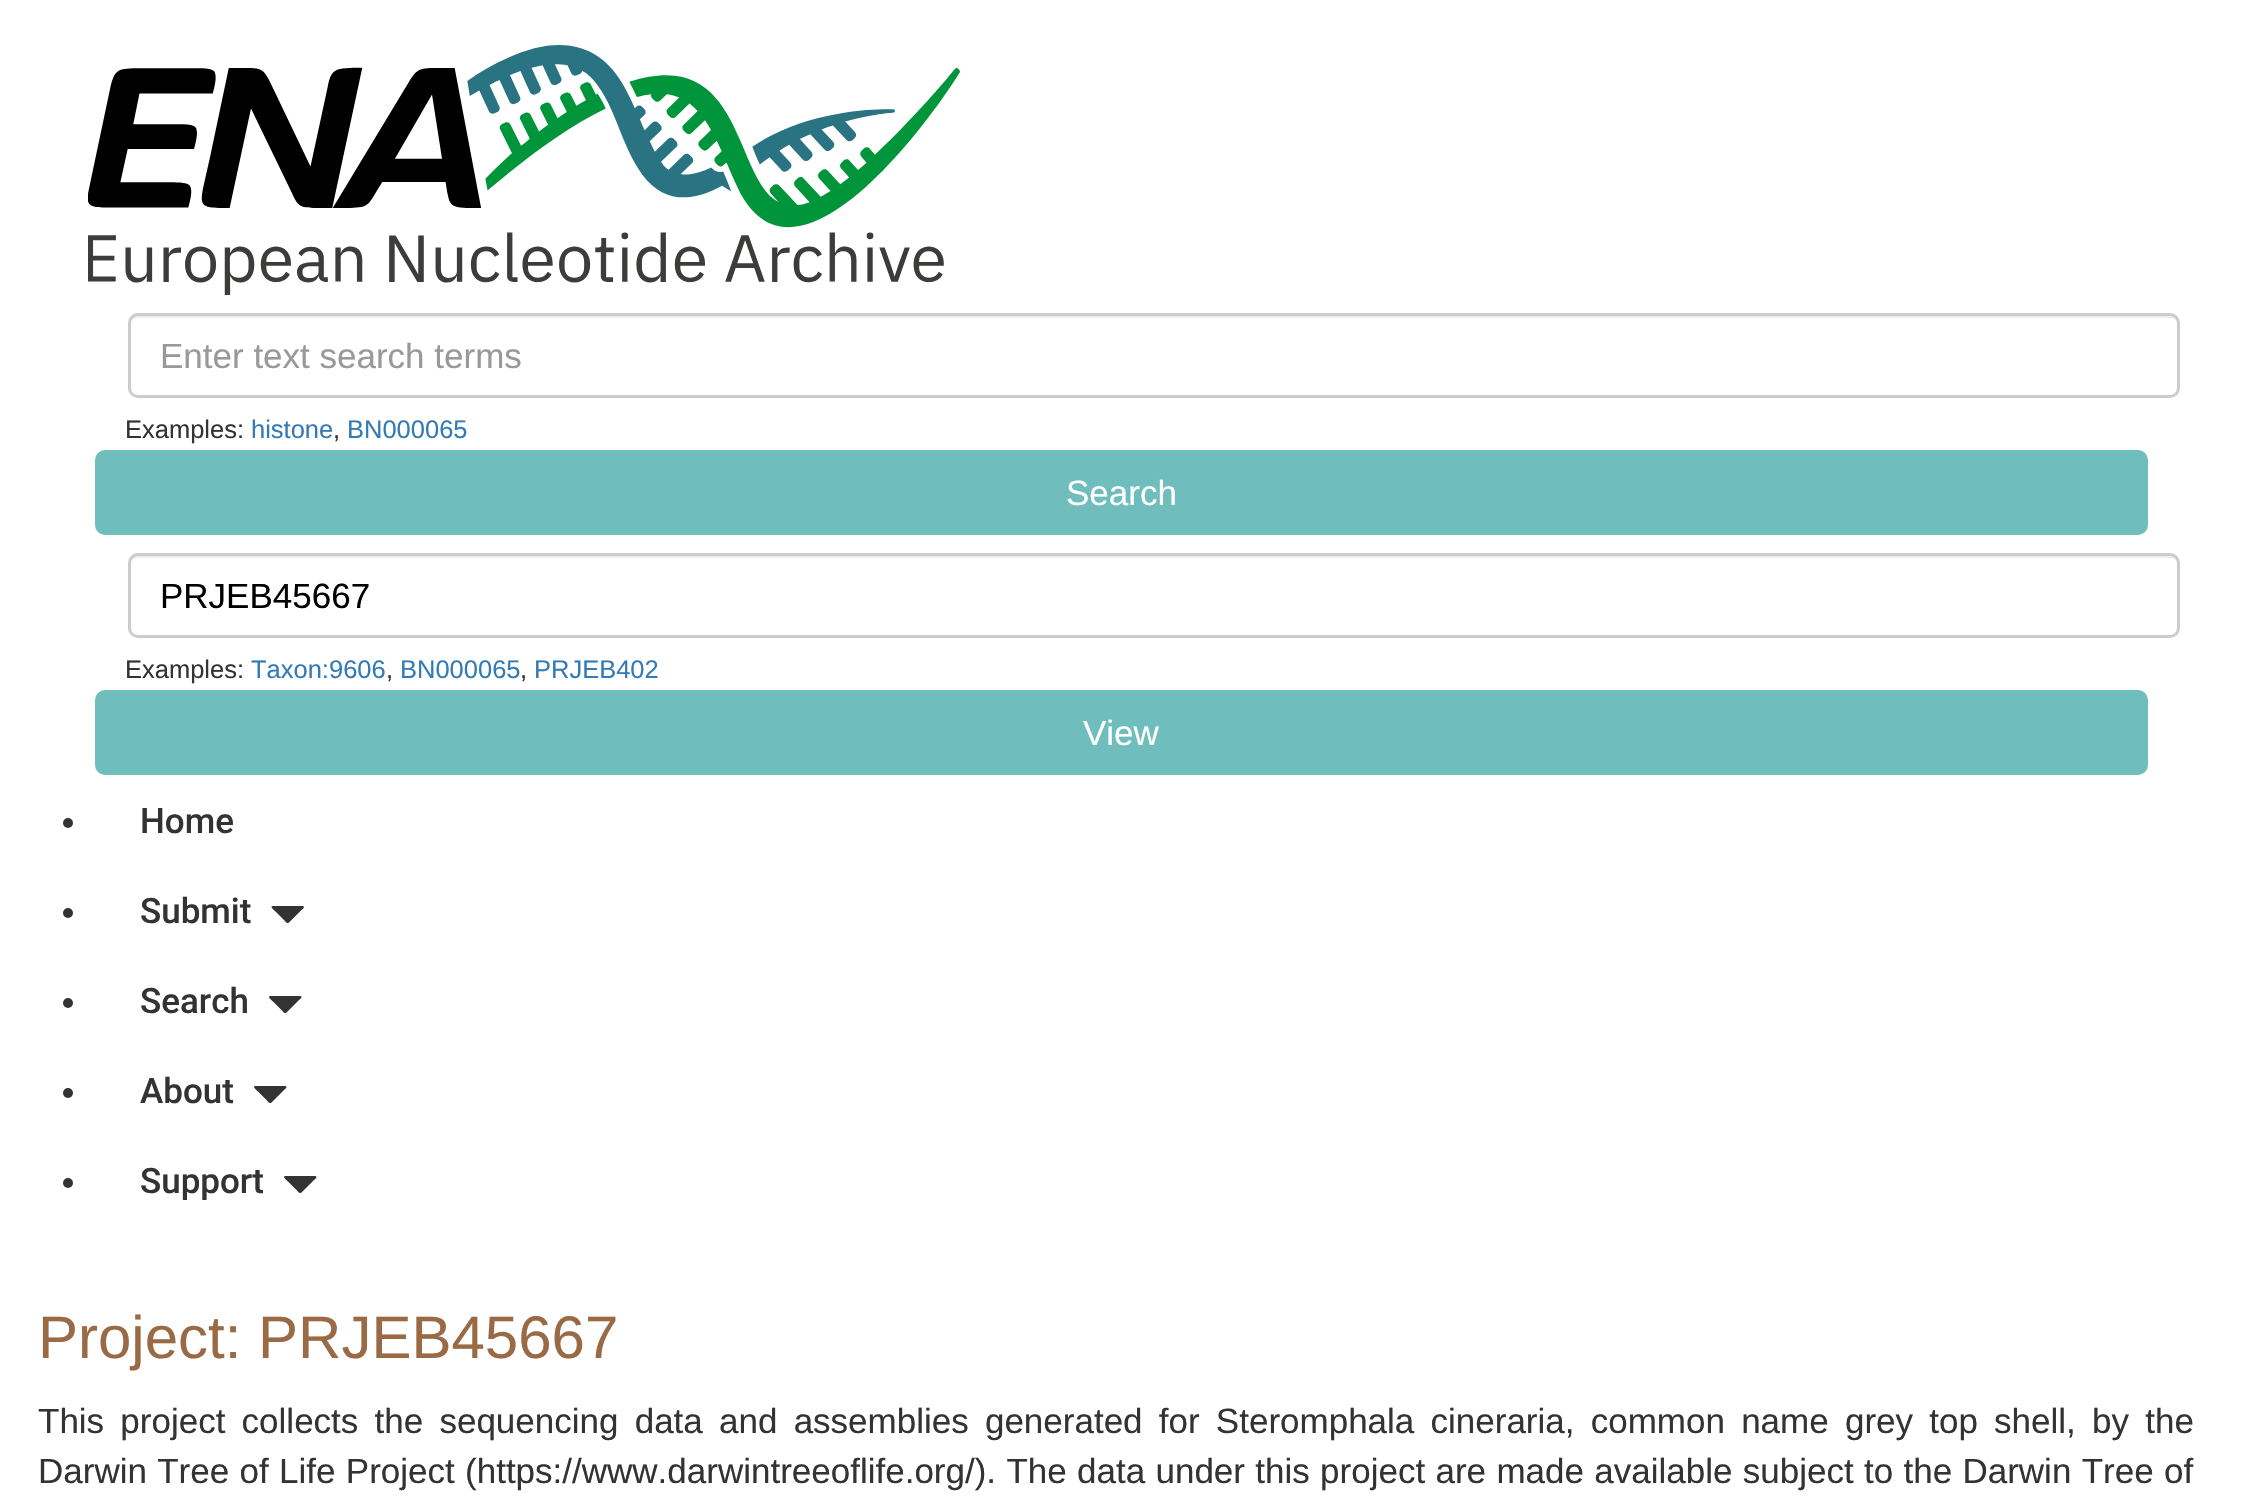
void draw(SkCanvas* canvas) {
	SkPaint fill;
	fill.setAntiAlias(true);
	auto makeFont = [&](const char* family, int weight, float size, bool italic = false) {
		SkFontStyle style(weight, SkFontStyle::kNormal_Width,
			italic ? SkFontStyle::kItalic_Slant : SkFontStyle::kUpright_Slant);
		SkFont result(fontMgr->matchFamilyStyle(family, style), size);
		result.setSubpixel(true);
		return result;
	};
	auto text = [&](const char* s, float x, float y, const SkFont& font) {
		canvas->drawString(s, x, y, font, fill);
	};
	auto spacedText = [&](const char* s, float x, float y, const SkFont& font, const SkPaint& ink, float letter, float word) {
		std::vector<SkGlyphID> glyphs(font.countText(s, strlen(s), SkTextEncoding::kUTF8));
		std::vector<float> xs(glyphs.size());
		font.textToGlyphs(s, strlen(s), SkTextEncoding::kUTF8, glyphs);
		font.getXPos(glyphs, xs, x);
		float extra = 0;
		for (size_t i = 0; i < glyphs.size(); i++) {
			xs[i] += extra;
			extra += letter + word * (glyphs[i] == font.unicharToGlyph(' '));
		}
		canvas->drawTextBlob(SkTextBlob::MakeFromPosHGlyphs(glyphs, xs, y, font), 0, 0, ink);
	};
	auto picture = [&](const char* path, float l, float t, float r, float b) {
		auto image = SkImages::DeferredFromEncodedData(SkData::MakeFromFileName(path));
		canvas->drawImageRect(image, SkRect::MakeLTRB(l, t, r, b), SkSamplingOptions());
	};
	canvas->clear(0xFFFFFFFF);
	picture("image0.png", 88, 45, 960, 295);
	fill.setColor(0xFFECECEC);
	canvas->drawPath(SkPathBuilder().moveTo(138, 318).lineTo(2170, 318).cubicTo(2174, 318, 2178, 321, 2178, 325).cubicTo(2178, 320, 2176, 315, 2170, 315).lineTo(138, 315).cubicTo(132, 315, 130, 320, 130, 325).cubicTo(130, 321, 133, 318, 138, 318).close().detach(), fill);
	fill.setStyle(SkPaint::kStroke_Style);
	fill.setStrokeWidth(3);
	fill.setColor(0xFFCCCCCC);
	canvas->drawRoundRect(SkRect::MakeLTRB(129.5f, 314.5f, 2178.5f, 396.5f), 8.5f, 8.5f, fill);
	fill.setStyle(SkPaint::kFill_Style);
	fill.setColor(0xFF70BDBD);
	canvas->drawRoundRect(SkRect::MakeLTRB(96.5f, 451.5f, 2146.5f, 533.5f), 8.5f, 8.5f, fill);
	fill.setStyle(SkPaint::kStroke_Style);
	canvas->drawRoundRect(SkRect::MakeLTRB(96.5f, 451.5f, 2146.5f, 533.5f), 8.5f, 8.5f, fill);
	fill.setStyle(SkPaint::kFill_Style);
	fill.setColor(0xFFECECEC);
	canvas->drawPath(SkPathBuilder().moveTo(138, 558).lineTo(2170, 558).cubicTo(2174, 558, 2178, 561, 2178, 565).cubicTo(2178, 560, 2176, 555, 2170, 555).lineTo(138, 555).cubicTo(132, 555, 130, 560, 130, 565).cubicTo(130, 561, 133, 558, 138, 558).close().detach(), fill);
	fill.setStyle(SkPaint::kStroke_Style);
	fill.setColor(0xFFCCCCCC);
	canvas->drawRoundRect(SkRect::MakeLTRB(129.5f, 554.5f, 2178.5f, 636.5f), 8.5f, 8.5f, fill);
	fill.setStyle(SkPaint::kFill_Style);
	fill.setColor(0xFF70BDBD);
	canvas->drawRoundRect(SkRect::MakeLTRB(96.5f, 691.5f, 2146.5f, 773.5f), 8.5f, 8.5f, fill);
	fill.setStyle(SkPaint::kStroke_Style);
	canvas->drawRoundRect(SkRect::MakeLTRB(96.5f, 691.5f, 2146.5f, 773.5f), 8.5f, 8.5f, fill);
	fill.setStyle(SkPaint::kFill_Style);
	fill.setColor(0xFF333333);
	canvas->drawCircle(68, 823, 5, fill);
	canvas->drawCircle(68, 913, 5, fill);
	canvas->drawPath(SkPathBuilder().moveTo(273, 906).lineTo(302.5f, 906).cubicTo(306.5f, 906.5f, 301, 910.5f, 301, 910.5f).lineTo(289, 922.5f).cubicTo(287, 924.5f, 285, 921, 284.5f, 920.5f).lineTo(277, 913).cubicTo(274, 910, 269, 906, 273, 906).close().detach(), fill);
	canvas->drawCircle(68, 1003, 5, fill);
	canvas->drawPath(SkPathBuilder().moveTo(270.5f, 996).lineTo(300, 996).cubicTo(304, 996.5f, 298.5f, 1000.5f, 298.5f, 1000.5f).lineTo(286.5f, 1012.5f).cubicTo(284.5f, 1014.5f, 282.5f, 1011, 282, 1010.5f).lineTo(274.5f, 1003).cubicTo(271.5f, 1000, 266.5f, 996, 270.5f, 996).close().detach(), fill);
	canvas->drawCircle(68, 1093, 5, fill);
	canvas->drawPath(SkPathBuilder().moveTo(255.5f, 1086).lineTo(285, 1086).cubicTo(289, 1086.5f, 283.5f, 1090.5f, 283.5f, 1090.5f).lineTo(271.5f, 1102.5f).cubicTo(269.5f, 1104.5f, 267.5f, 1101, 267, 1100.5f).lineTo(259.5f, 1093).cubicTo(256.5f, 1090, 251.5f, 1086, 255.5f, 1086).close().detach(), fill);
	canvas->drawCircle(68, 1183, 5, fill);
	canvas->drawPath(SkPathBuilder().moveTo(285.5f, 1176).lineTo(315, 1176).cubicTo(319, 1176.5f, 313.5f, 1180.5f, 313.5f, 1180.5f).lineTo(301.5f, 1192.5f).cubicTo(299.5f, 1194.5f, 297.5f, 1191, 297, 1190.5f).lineTo(289.5f, 1183).cubicTo(286.5f, 1180, 281.5f, 1176, 285.5f, 1176).close().detach(), fill);
	auto font1 = makeFont("Liberation Sans", 400, 35);
	fill.setColor(0xFF999999);
	text("Enter text search terms", 160, 368, font1);
	auto font2 = makeFont("Liberation Sans", 400, 25.5f);
	fill.setColor(0xFF333333);
	text("Examples:", 125, 438, font2);
	fill.setColor(0xFF337AB7);
	text("histone", 251, 438, font2);
	fill.setColor(0xFF333333);
	text(",", 333, 438, font2);
	fill.setColor(0xFF337AB7);
	text("BN000065", 347, 438, font2);
	fill.setColor(0xFFFFFFFF);
	text("Search", 1066, 505, font1);
	fill.setColor(0xFF000000);
	text("PRJEB45667", 160, 608, font1);
	fill.setColor(0xFF333333);
	text("Examples:", 125, 678, font2);
	fill.setColor(0xFF337AB7);
	text("Taxon:9606", 251, 678, font2);
	fill.setColor(0xFF333333);
	text(",", 386, 678, font2);
	fill.setColor(0xFF337AB7);
	text("BN000065", 400, 678, font2);
	fill.setColor(0xFF333333);
	text(",", 520, 678, font2);
	fill.setColor(0xFF337AB7);
	text("PRJEB402", 534, 678, font2);
	fill.setColor(0xFFFFFFFF);
	text("View", 1083, 745, font1);
	auto font3 = makeFont("Roboto", 500, 35);
	fill.setColor(0xFF333333);
	text("Home", 140, 833, font3);
	text("Submit", 140, 923, font3);
	text("Search", 140, 1013, font3);
	text("About", 140, 1103, font3);
	text("Support", 140, 1193, font3);
	auto font4 = makeFont("Liberation Sans", 400, 60);
	fill.setColor(0xFF996A44);
	text("Project: PRJEB45667", 38, 1358, font4);
	fill.setColor(0xFF333333);
	spacedText("This project collects the sequencing data and assemblies generated for Steromphala cineraria, common name grey top shell, by the", 38, 1433, font1, fill, 0, 6.5f);
	spacedText("Darwin Tree of Life Project (https://www.darwintreeoflife.org/). The data under this project are made available subject to the Darwin Tree of", 38, 1483, font1, fill, 0, 0.6f);
}
